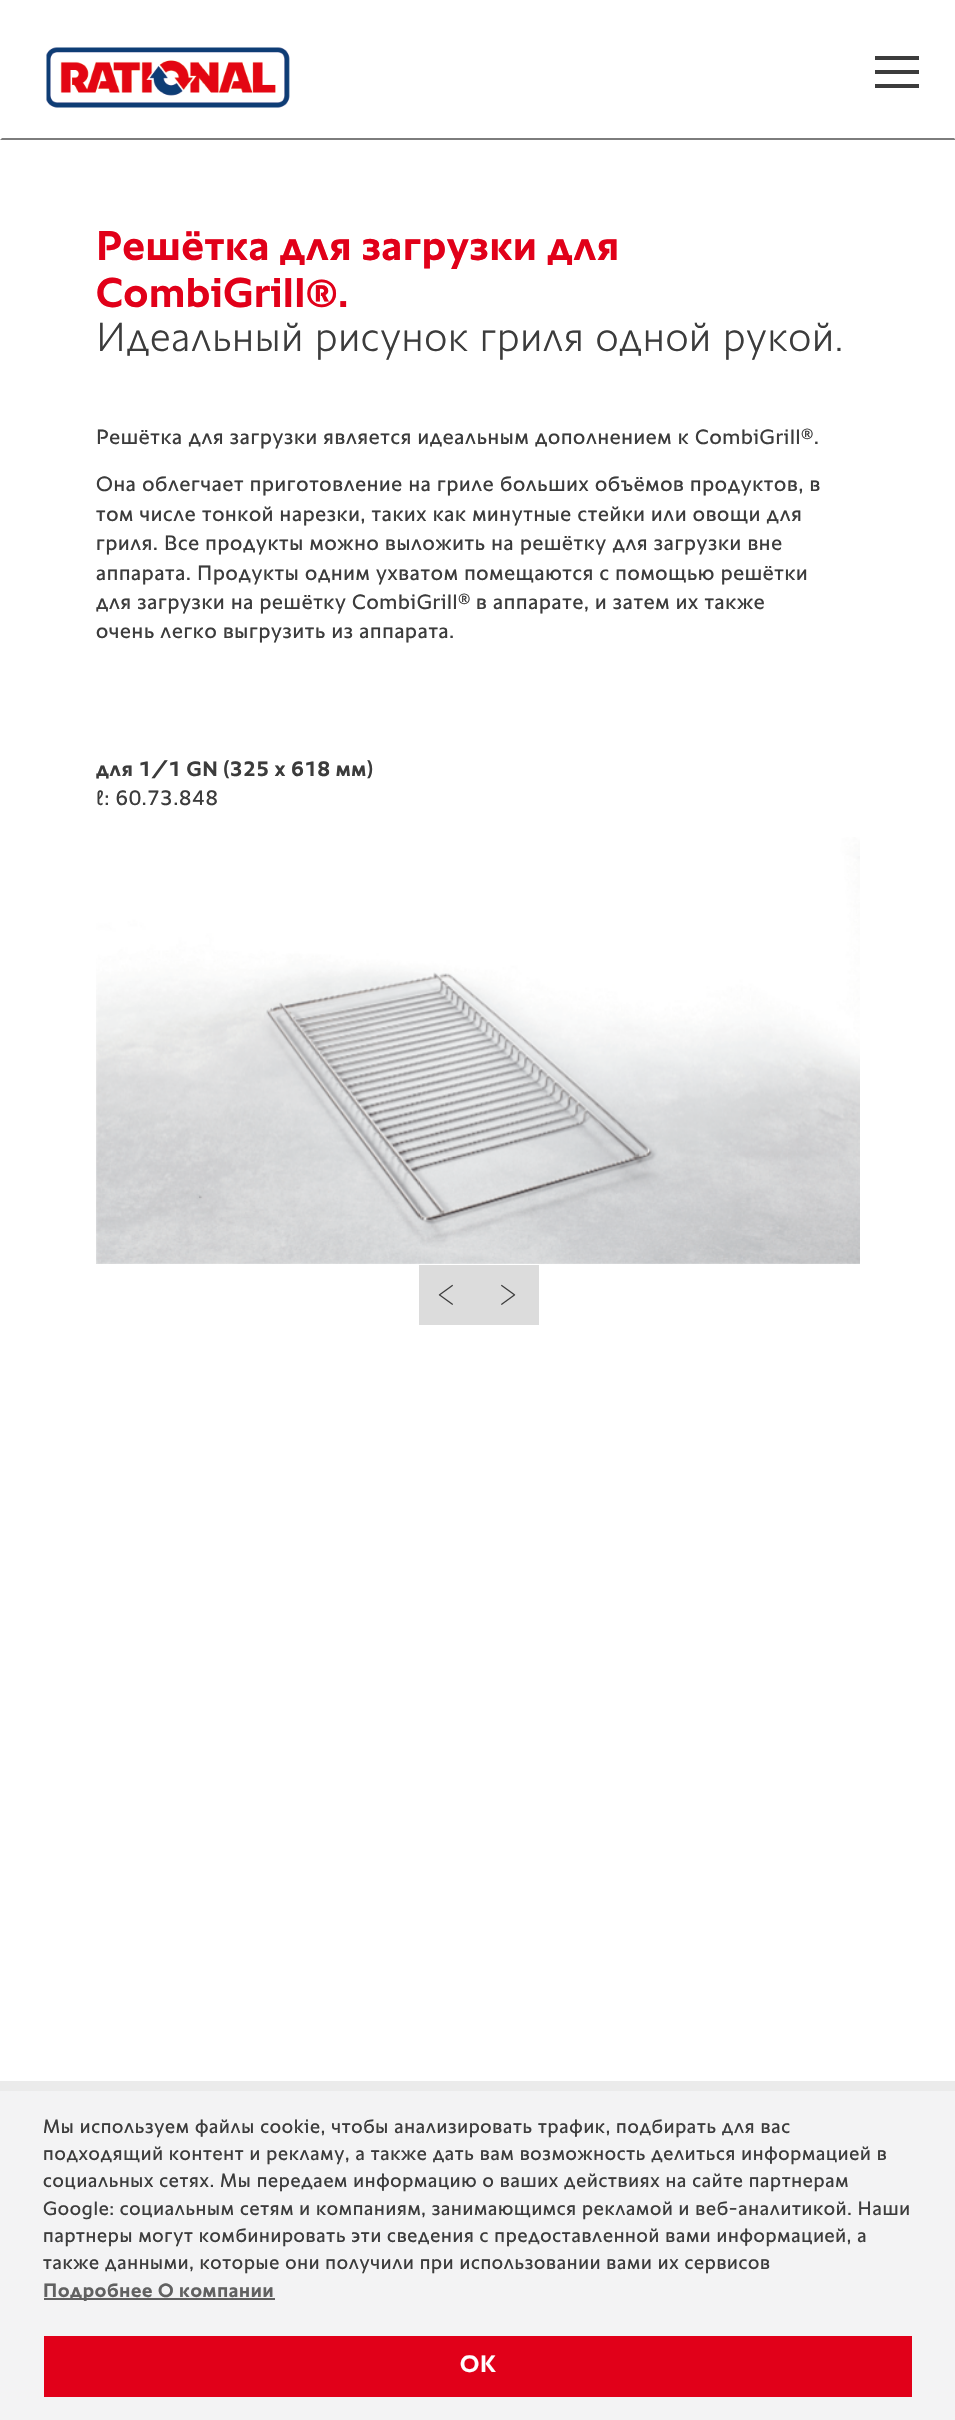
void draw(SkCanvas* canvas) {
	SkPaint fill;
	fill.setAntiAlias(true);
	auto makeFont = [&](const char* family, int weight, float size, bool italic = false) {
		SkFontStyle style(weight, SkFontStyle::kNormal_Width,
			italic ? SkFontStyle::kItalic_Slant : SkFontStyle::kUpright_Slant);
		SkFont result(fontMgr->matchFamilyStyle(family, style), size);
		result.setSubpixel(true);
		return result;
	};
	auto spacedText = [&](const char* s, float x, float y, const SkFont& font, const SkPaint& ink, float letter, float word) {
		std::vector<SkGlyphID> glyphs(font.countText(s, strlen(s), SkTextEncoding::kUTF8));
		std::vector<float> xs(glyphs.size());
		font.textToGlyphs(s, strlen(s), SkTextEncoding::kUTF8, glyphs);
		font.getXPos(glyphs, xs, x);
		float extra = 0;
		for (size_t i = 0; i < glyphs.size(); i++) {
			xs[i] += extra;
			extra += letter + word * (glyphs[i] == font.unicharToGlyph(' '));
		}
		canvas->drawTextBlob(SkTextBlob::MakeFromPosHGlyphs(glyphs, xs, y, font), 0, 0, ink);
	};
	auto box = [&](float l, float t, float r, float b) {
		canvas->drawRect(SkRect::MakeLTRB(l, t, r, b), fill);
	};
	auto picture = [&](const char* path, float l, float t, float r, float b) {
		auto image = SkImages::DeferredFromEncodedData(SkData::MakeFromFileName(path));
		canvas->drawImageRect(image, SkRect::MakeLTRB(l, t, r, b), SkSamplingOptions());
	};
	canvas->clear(0xFFFFFFFF);
	fill.setColor(0xFF7D7D7D);
	canvas->drawPath(SkPathBuilder().moveTo(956, 140).lineTo(0, 140).lineTo(2, 138).lineTo(954, 138).close().detach(), fill);
	picture("image0.png", 46, 47, 290, 108);
	fill.setColor(0xFF3C3C3C);
	canvas->drawPath(SkPathBuilder().moveTo(919, 88).lineTo(875, 88).lineTo(875, 84).lineTo(919, 84).close().moveTo(919, 60).lineTo(875, 60).lineTo(875, 56).lineTo(919, 56).close().moveTo(919, 74).lineTo(875, 74).lineTo(875, 70).lineTo(919, 70).close().detach(), fill);
	picture("image1.png", 96, 837, 860, 1264);
	fill.setColor(0xFFDCDCDC);
	box(419, 1265, 539, 1325);
	picture("image2.png", 438, 1284, 453, 1305);
	picture("image3.png", 501, 1284, 516, 1305);
	fill.setColor(0xFFEBEBEB);
	box(0, 2081, 955, 2091);
	fill.setColor(0xFFF3F3F4);
	box(0, 2091, 955, 2420);
	fill.setColor(0xFF616161);
	box(44, 2298, 275, 2300);
	fill.setColor(0xFFE10019);
	box(44, 2336, 912, 2397);
	auto font1 = makeFont("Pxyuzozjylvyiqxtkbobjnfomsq", 700, 42);
	spacedText("Решётка для загрузки для", 96, 260, font1, fill, 0.73f, 0);
	spacedText("CombiGrill®.", 96, 307, font1, fill, 0.73f, 0);
	auto font2 = makeFont("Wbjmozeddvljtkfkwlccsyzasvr", 300, 41.2f);
	fill.setColor(0xFF3C3C3C);
	spacedText("Идеальный рисунок гриля одной рукой.", 96, 351, font2, fill, 0.73f, 0);
	auto font3 = makeFont("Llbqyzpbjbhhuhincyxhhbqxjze", 400, 21);
	spacedText("Решётка для загрузки является идеальным дополнением к CombiGrill", 96, 444, font3, fill, 0.73f, 0);
	auto font4 = makeFont("Llbqyzpbjbhhuhincyxhhbqxjze", 400, 16);
	spacedText("®", 801, 439, font4, fill, 0.73f, 0);
	spacedText(".", 814, 444, font3, fill, 0.73f, 0);
	spacedText("Она облегчает приготовление на гриле больших объёмов продуктов, в", 96, 491, font3, fill, 0.73f, 0);
	spacedText("том числе тонкой нарезки, таких как минутные стейки или овощи для", 96, 521, font3, fill, 0.73f, 0);
	spacedText("гриля. Все продукты можно выложить на решётку для загрузки вне", 96, 550, font3, fill, 0.73f, 0);
	spacedText("аппарата. Продукты одним ухватом помещаются с помощью решётки", 96, 580, font3, fill, 0.73f, 0);
	spacedText("для загрузки на решётку CombiGrill", 96, 609, font3, fill, 0.73f, 0);
	spacedText("®", 458, 604, font4, fill, 0.73f, 0);
	spacedText("в аппарате, и затем их также", 476, 609, font3, fill, 0.73f, 0);
	spacedText("очень легко выгрузить из аппарата.", 96, 638, font3, fill, 0.73f, 0);
	auto font5 = makeFont("Pxyuzozjylvyiqxtkbobjnfomsq", 700, 21);
	spacedText("для 1/1 GN (325 x 618 мм)", 96, 776, font5, fill, 0.73f, 0);
	spacedText("№: 60.73.848", 96, 805, font3, fill, 0.73f, 0);
	auto font6 = makeFont("Llbqyzpbjbhhuhincyxhhbqxjze", 400, 19.5f);
	spacedText("Мы используем файлы cookie, чтобы анализировать трафик, подбирать для вас", 43, 2133, font6, fill, 0.73f, 0);
	spacedText("подходящий контент и рекламу, а также дать вам возможность делиться информацией в", 43, 2160, font6, fill, 0.73f, 0);
	spacedText("социальных сетях. Мы передаем информацию о ваших действиях на сайте партнерам", 43, 2187, font6, fill, 0.73f, 0);
	spacedText("Google: социальным сетям и компаниям, занимающимся рекламой и веб-аналитикой. Наши", 43, 2215, font6, fill, 0.73f, 0);
	spacedText("партнеры могут комбинировать эти сведения с предоставленной вами информацией, а", 43, 2242, font6, fill, 0.73f, 0);
	spacedText("также данными, которые они получили при использовании вами их сервисов", 43, 2269, font6, fill, 0.73f, 0);
	auto font7 = makeFont("Pxyuzozjylvyiqxtkbobjnfomsq", 700, 19.5f);
	fill.setColor(0xFF616161);
	spacedText("Подробнее О компании", 43, 2297, font7, fill, 0.73f, 0);
	auto font8 = makeFont("Pxyuzozjylvyiqxtkbobjnfomsq", 700, 24);
	fill.setColor(0xFFFFFFFF);
	spacedText("OK", 460, 2372, font8, fill, 0.73f, 0);
}
